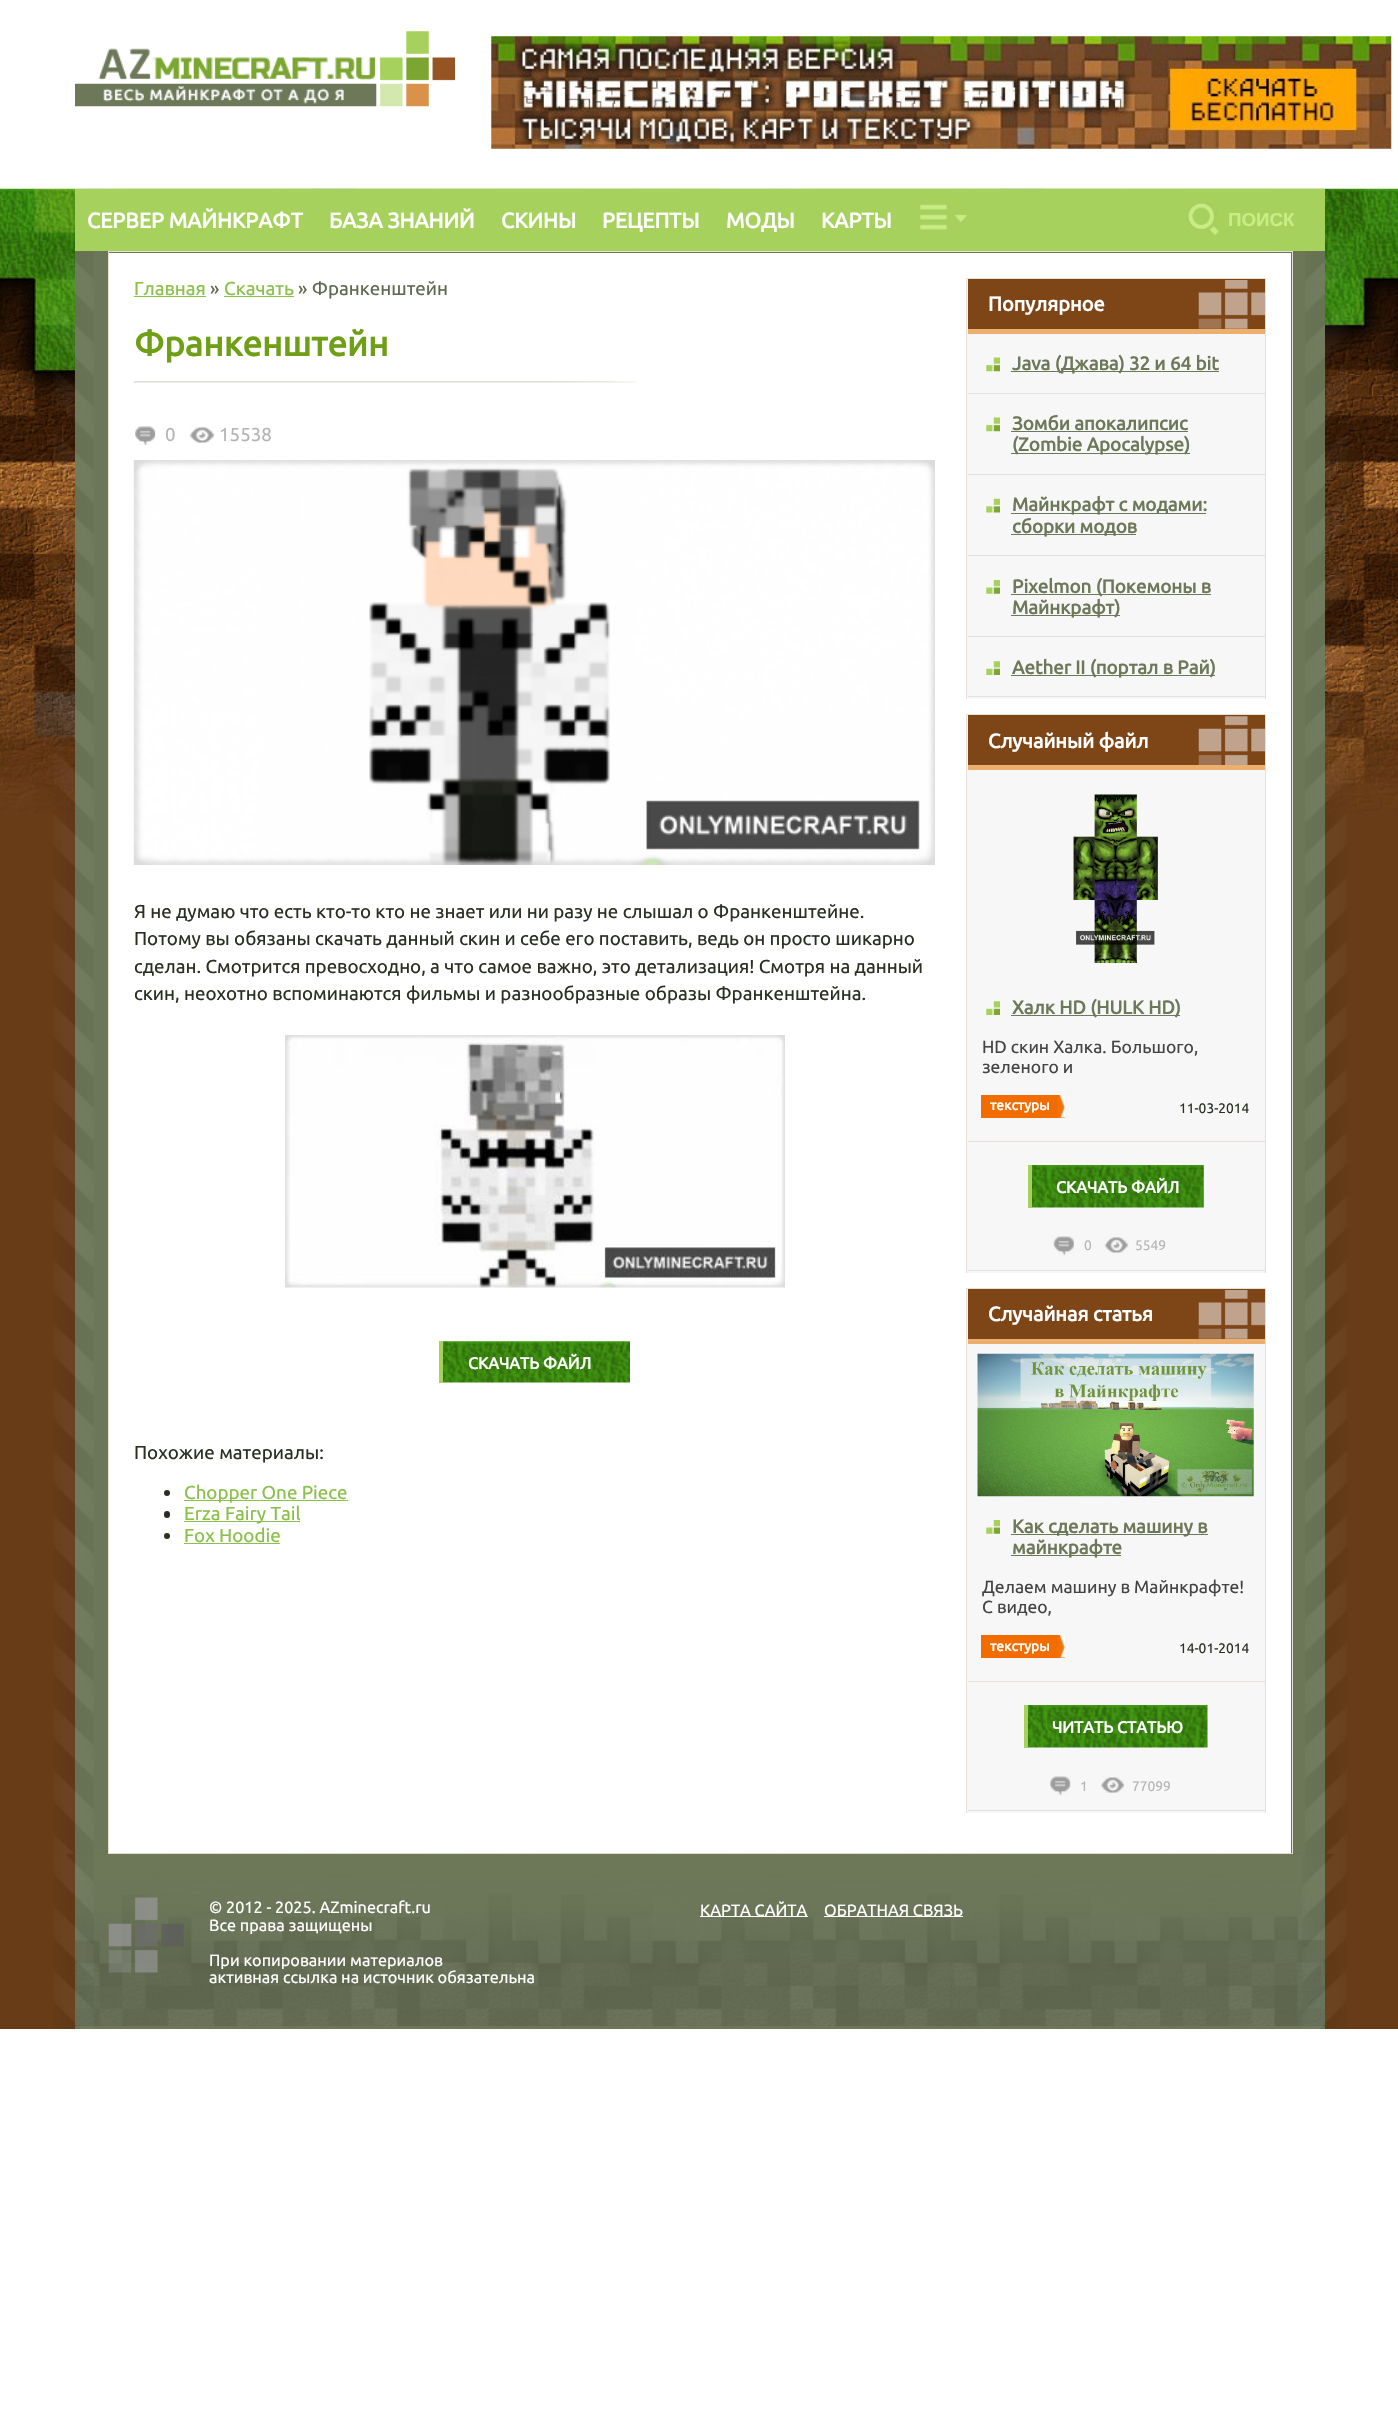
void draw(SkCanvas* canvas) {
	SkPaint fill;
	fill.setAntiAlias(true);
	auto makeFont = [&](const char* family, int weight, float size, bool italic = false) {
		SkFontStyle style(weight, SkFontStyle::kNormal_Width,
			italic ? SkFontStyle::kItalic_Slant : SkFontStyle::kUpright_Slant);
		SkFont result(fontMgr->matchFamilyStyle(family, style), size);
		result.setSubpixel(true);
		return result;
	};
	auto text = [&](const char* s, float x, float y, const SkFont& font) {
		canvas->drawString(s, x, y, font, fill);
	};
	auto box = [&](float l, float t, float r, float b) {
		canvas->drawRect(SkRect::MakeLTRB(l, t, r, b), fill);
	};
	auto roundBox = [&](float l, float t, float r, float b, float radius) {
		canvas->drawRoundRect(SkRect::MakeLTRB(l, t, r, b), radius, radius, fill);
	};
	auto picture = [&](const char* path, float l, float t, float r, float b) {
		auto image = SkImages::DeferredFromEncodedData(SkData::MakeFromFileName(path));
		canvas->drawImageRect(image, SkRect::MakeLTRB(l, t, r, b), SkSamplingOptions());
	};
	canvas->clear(0xFFFFFFFF);
	picture("image0.png", 75, 31, 455, 107);
	picture("image1.png", 491, 36, 1392, 149);
	fill.setColor(0xFF673C17);
	box(0, 813, 1398, 2029);
	picture("image2.png", 0, 188, 1398, 814);
	fill.setColor(0xFFA7D15D);
	box(75, 189, 1325, 251);
	picture("image3.png", 920, 204, 968, 230);
	picture("image4.png", 1187, 203, 1219, 235);
	fill.setColor(0xFF6C7758);
	box(75, 251, 1325, 1854);
	picture("image5.png", 53, 251, 94, 1854);
	picture("image6.png", 1305, 251, 1348, 1854);
	fill.setStyle(SkPaint::kStroke_Style);
	fill.setStrokeWidth(1);
	fill.setColor(0xFFE7E1D3);
	canvas->drawRect(SkRect::MakeLTRB(108.5f, 251.5f, 1292.5f, 1853.5f), fill);
	fill.setStyle(SkPaint::kFill_Style);
	fill.setColor(0xFFFFFFFF);
	box(109, 253, 1291, 1853);
	fill.setColor(0xFF8AC04C);
	box(134, 296, 206, 297);
	box(224, 296, 294, 297);
	picture("image7.png", 133, 381, 637, 383);
	picture("image8.png", 135, 426, 156, 446);
	picture("image9.png", 189, 426, 215, 443);
	picture("image10.png", 133, 460, 935, 865);
	picture("image11.png", 285, 1035, 785, 1288);
	picture("image12.png", 443, 1341, 630, 1383);
	fill.setColor(0xFFA7D15D);
	box(439, 1341, 443, 1383);
	fill.setColor(0xFF2A2F22);
	canvas->drawCircle(167, 1493, 3, fill);
	fill.setColor(0xFF8AC04C);
	box(184, 1500, 348, 1501);
	fill.setColor(0xFF2A2F22);
	roundBox(164, 1511, 170, 1518, 3);
	fill.setColor(0xFF8AC04C);
	box(184, 1521, 300, 1522);
	fill.setColor(0xFF2A2F22);
	canvas->drawCircle(167, 1536, 3, fill);
	fill.setColor(0xFF8AC04C);
	box(184, 1543, 280, 1544);
	fill.setColor(0xFFF7F7F7);
	box(967, 279, 1265, 699);
	fill.setColor(0xFFE7E1D3);
	box(966, 278, 1266, 279);
	box(1265, 278, 1266, 699);
	box(966, 278, 967, 699);
	fill.setColor(0xFF7E4517);
	box(968, 279, 1265, 329);
	picture("image13.png", 1198, 280, 1265, 329);
	fill.setColor(0xFFECAF6D);
	box(968, 329, 1265, 334);
	picture("image14.png", 986, 357, 1000, 372);
	fill.setColor(0xFFE1E1E1);
	box(968, 393, 1265, 394);
	fill.setColor(0xFF6D7859);
	box(1011, 371, 1219, 372);
	picture("image14.png", 986, 417, 1000, 432);
	fill.setColor(0xFFE1E1E1);
	box(968, 474, 1265, 475);
	fill.setColor(0xFF6D7859);
	box(1011, 431, 1188, 432);
	box(1011, 453, 1190, 454);
	picture("image15.png", 986, 498, 1000, 513);
	fill.setColor(0xFFE1E1E1);
	box(968, 555, 1265, 556);
	fill.setColor(0xFF6D7859);
	box(1011, 513, 1206, 514);
	box(1011, 534, 1136, 535);
	picture("image16.png", 986, 580, 1000, 594);
	fill.setColor(0xFFE1E1E1);
	box(968, 636, 1265, 637);
	fill.setColor(0xFF6D7859);
	box(1011, 594, 1211, 595);
	box(1011, 615, 1120, 616);
	picture("image17.png", 986, 661, 1000, 675);
	fill.setColor(0xFFE1E1E1);
	box(968, 696, 1265, 697);
	fill.setColor(0xFF6D7859);
	box(1011, 675, 1215, 676);
	fill.setColor(0xFFF7F7F7);
	box(967, 715, 1265, 1273);
	fill.setColor(0xFFE7E1D3);
	box(966, 714, 1266, 715);
	box(1265, 714, 1266, 1273);
	box(966, 714, 967, 1273);
	fill.setColor(0xFF7E4517);
	box(968, 715, 1265, 765);
	picture("image18.png", 1198, 716, 1265, 765);
	fill.setColor(0xFFECAF6D);
	box(968, 765, 1265, 770);
	fill.setColor(0xFFE1E1E1);
	box(968, 1270, 1265, 1271);
	picture("image19.png", 1073, 794, 1158, 963);
	picture("image17.png", 986, 1001, 1000, 1015);
	fill.setColor(0xFF6D7859);
	box(1011, 1015, 1180, 1016);
	fill.setColor(0xFFF26C00);
	box(981, 1095, 1065, 1118);
	picture("image20.png", 1057, 1095, 1065, 1118);
	fill.setColor(0xFFE7E1D3);
	box(968, 1141, 1265, 1142);
	picture("image21.png", 1032, 1165, 1204, 1208);
	fill.setColor(0xFFA7D15D);
	box(1028, 1165, 1032, 1208);
	picture("image22.png", 1053, 1236, 1074, 1256);
	picture("image23.png", 1104, 1237, 1129, 1253);
	fill.setColor(0xFFF7F7F7);
	box(967, 1289, 1265, 1813);
	fill.setColor(0xFFE7E1D3);
	box(966, 1288, 1266, 1289);
	box(1265, 1288, 1266, 1813);
	box(966, 1288, 967, 1813);
	fill.setColor(0xFF7E4517);
	box(968, 1289, 1265, 1339);
	picture("image13.png", 1198, 1290, 1265, 1339);
	fill.setColor(0xFFECAF6D);
	box(968, 1339, 1265, 1344);
	fill.setColor(0xFFE1E1E1);
	box(968, 1810, 1265, 1811);
	picture("image24.png", 977, 1353, 1254, 1497);
	picture("image25.png", 986, 1520, 1000, 1534);
	fill.setColor(0xFF6D7859);
	box(1011, 1534, 1208, 1535);
	box(1011, 1555, 1121, 1556);
	fill.setColor(0xFFF26C00);
	box(981, 1635, 1065, 1658);
	picture("image20.png", 1057, 1635, 1065, 1658);
	fill.setColor(0xFFE7E1D3);
	box(968, 1681, 1265, 1682);
	picture("image26.png", 1028, 1705, 1208, 1748);
	fill.setColor(0xFFA7D15D);
	box(1024, 1705, 1028, 1748);
	picture("image27.png", 1050, 1776, 1071, 1796);
	picture("image28.png", 1101, 1777, 1125, 1793);
	fill.setColor(0xFF6D7859);
	box(75, 1854, 1325, 2029);
	picture("image29.png", 75, 1853, 1325, 2027);
	picture("image30.png", 53, 1854, 94, 2029);
	picture("image31.png", 1302, 1854, 1347, 2029);
	picture("image32.png", 108, 1897, 184, 1973);
	fill.setColor(0xFFFFFFFF);
	box(700, 1916, 808, 1917);
	box(824, 1916, 963, 1917);
	auto font1 = makeFont("Ubuntu", 700, 21.25f);
	text("СЕРВЕР МАЙНКРАФТ", 87, 228, font1);
	text("БАЗА ЗНАНИЙ", 329, 228, font1);
	text("СКИНЫ", 501, 228, font1);
	text("РЕЦЕПТЫ", 602, 228, font1);
	text("МОДЫ", 726, 228, font1);
	text("КАРТЫ", 821, 228, font1);
	auto font2 = makeFont("Liberation Sans", 700, 18.75f);
	fill.setColor(0xFFC7ED84);
	text("ПОИСК", 1228, 226, font2);
	auto font3 = makeFont("Ubuntu", 400, 18.75f);
	fill.setColor(0xFF8AC04C);
	text("Главная", 134, 295, font3);
	fill.setColor(0xFF60694E);
	text("»", 210, 295, font3);
	fill.setColor(0xFF8AC04C);
	text("Скачать", 224, 295, font3);
	fill.setColor(0xFF60694E);
	text("» Франкенштейн", 298, 295, font3);
	auto font4 = makeFont("Ubuntu", 700, 35);
	fill.setColor(0xFF6E9F16);
	text("Франкенштейн", 134, 356, font4);
	fill.setColor(0xFFB5B5B5);
	text("0", 165, 441, font3);
	text("15538", 219, 441, font3);
	fill.setColor(0xFF2A2F22);
	text("Я не думаю что есть кто-то кто не знает или ни разу не слышал о Франкенштейне.", 134, 918, font3);
	text("Потому вы обязаны скачать данный скин и себе его поставить, ведь он просто шикарно", 134, 945, font3);
	text("сделан. Смотрится превосходно, а что самое важно, это детализация! Смотря на данный", 134, 973, font3);
	text("скин, неохотно вспоминаются фильмы и разнообразные образы Франкенштейна.", 134, 1000, font3);
	auto font5 = makeFont("Ubuntu", 700, 16.25f);
	fill.setColor(0xFFFFFFFF);
	text("СКАЧАТЬ ФАЙЛ", 468, 1369, font5);
	fill.setColor(0xFF2A2F22);
	text("Похожие материалы:", 134, 1459, font3);
	fill.setColor(0xFF8AC04C);
	text("Chopper One Piece", 184, 1499, font3);
	text("Erza Fairy Tail", 184, 1520, font3);
	text("Fox Hoodie", 184, 1542, font3);
	auto font6 = makeFont("Ubuntu", 700, 20);
	fill.setColor(0xFFFFFFFF);
	text("Популярное", 988, 311, font6);
	auto font7 = makeFont("Ubuntu", 700, 18.75f);
	fill.setColor(0xFF6D7859);
	text("Java (Джава) 32 и 64 bit", 1012, 370, font7);
	text("Зомби апокалипсис", 1012, 430, font7);
	text("(Zombie Apocalypse)", 1012, 451, font7);
	text("Майнкрафт с модами:", 1012, 511, font7);
	text("сборки модов", 1012, 533, font7);
	text("Pixelmon (Покемоны в", 1012, 593, font7);
	text("Майнкрафт)", 1012, 614, font7);
	text("Aether II (портал в Рай)", 1012, 674, font7);
	fill.setColor(0xFFFFFFFF);
	text("Случайный файл", 988, 748, font6);
	fill.setColor(0xFF6D7859);
	text("Халк HD (HULK HD)", 1012, 1014, font7);
	auto font8 = makeFont("Ubuntu", 400, 17.5f);
	fill.setColor(0xFF444444);
	text("HD скин Халка. Большого,", 982, 1053, font8);
	text("зеленого и", 982, 1073, font8);
	auto font9 = makeFont("Ubuntu", 700, 13.75f);
	fill.setColor(0xFFFFFFFF);
	text("текстуры", 990, 1110, font9);
	auto font10 = makeFont("Ubuntu", 400, 13.75f);
	fill.setColor(0xFF2A2F22);
	text("11-03-2014", 1179, 1113, font10);
	fill.setColor(0xFFFFFFFF);
	text("CКАЧАТЬ ФАЙЛ", 1056, 1193, font5);
	fill.setColor(0xFFB5B5B5);
	text("0", 1084, 1250, font10);
	text("5549", 1135, 1250, font10);
	fill.setColor(0xFFFFFFFF);
	text("Случайная статья", 988, 1321, font6);
	fill.setColor(0xFF6D7859);
	text("Как сделать машину в", 1012, 1533, font7);
	text("майнкрафте", 1012, 1554, font7);
	fill.setColor(0xFF444444);
	text("Делаем машину в Майнкрафте!", 982, 1593, font8);
	text("С видео,", 982, 1613, font8);
	fill.setColor(0xFFFFFFFF);
	text("текстуры", 990, 1651, font9);
	fill.setColor(0xFF2A2F22);
	text("14-01-2014", 1179, 1653, font10);
	fill.setColor(0xFFFFFFFF);
	text("ЧИТАТЬ СТАТЬЮ", 1052, 1733, font5);
	fill.setColor(0xFFB5B5B5);
	text("1", 1080, 1791, font10);
	text("77099", 1132, 1791, font10);
	auto font11 = makeFont("Ubuntu", 400, 16.25f);
	fill.setColor(0xFFFFFFFF);
	text("© 2012 - 2025. AZminecraft.ru", 209, 1913, font11);
	text("Все права защищены", 209, 1931, font11);
	text("При копировании материалов", 209, 1966, font11);
	text("активная ссылка на источник обязательна", 209, 1983, font11);
	text("КАРТА САЙТА", 700, 1916, font11);
	text("ОБРАТНАЯ СВЯЗЬ", 824, 1916, font11);
}
